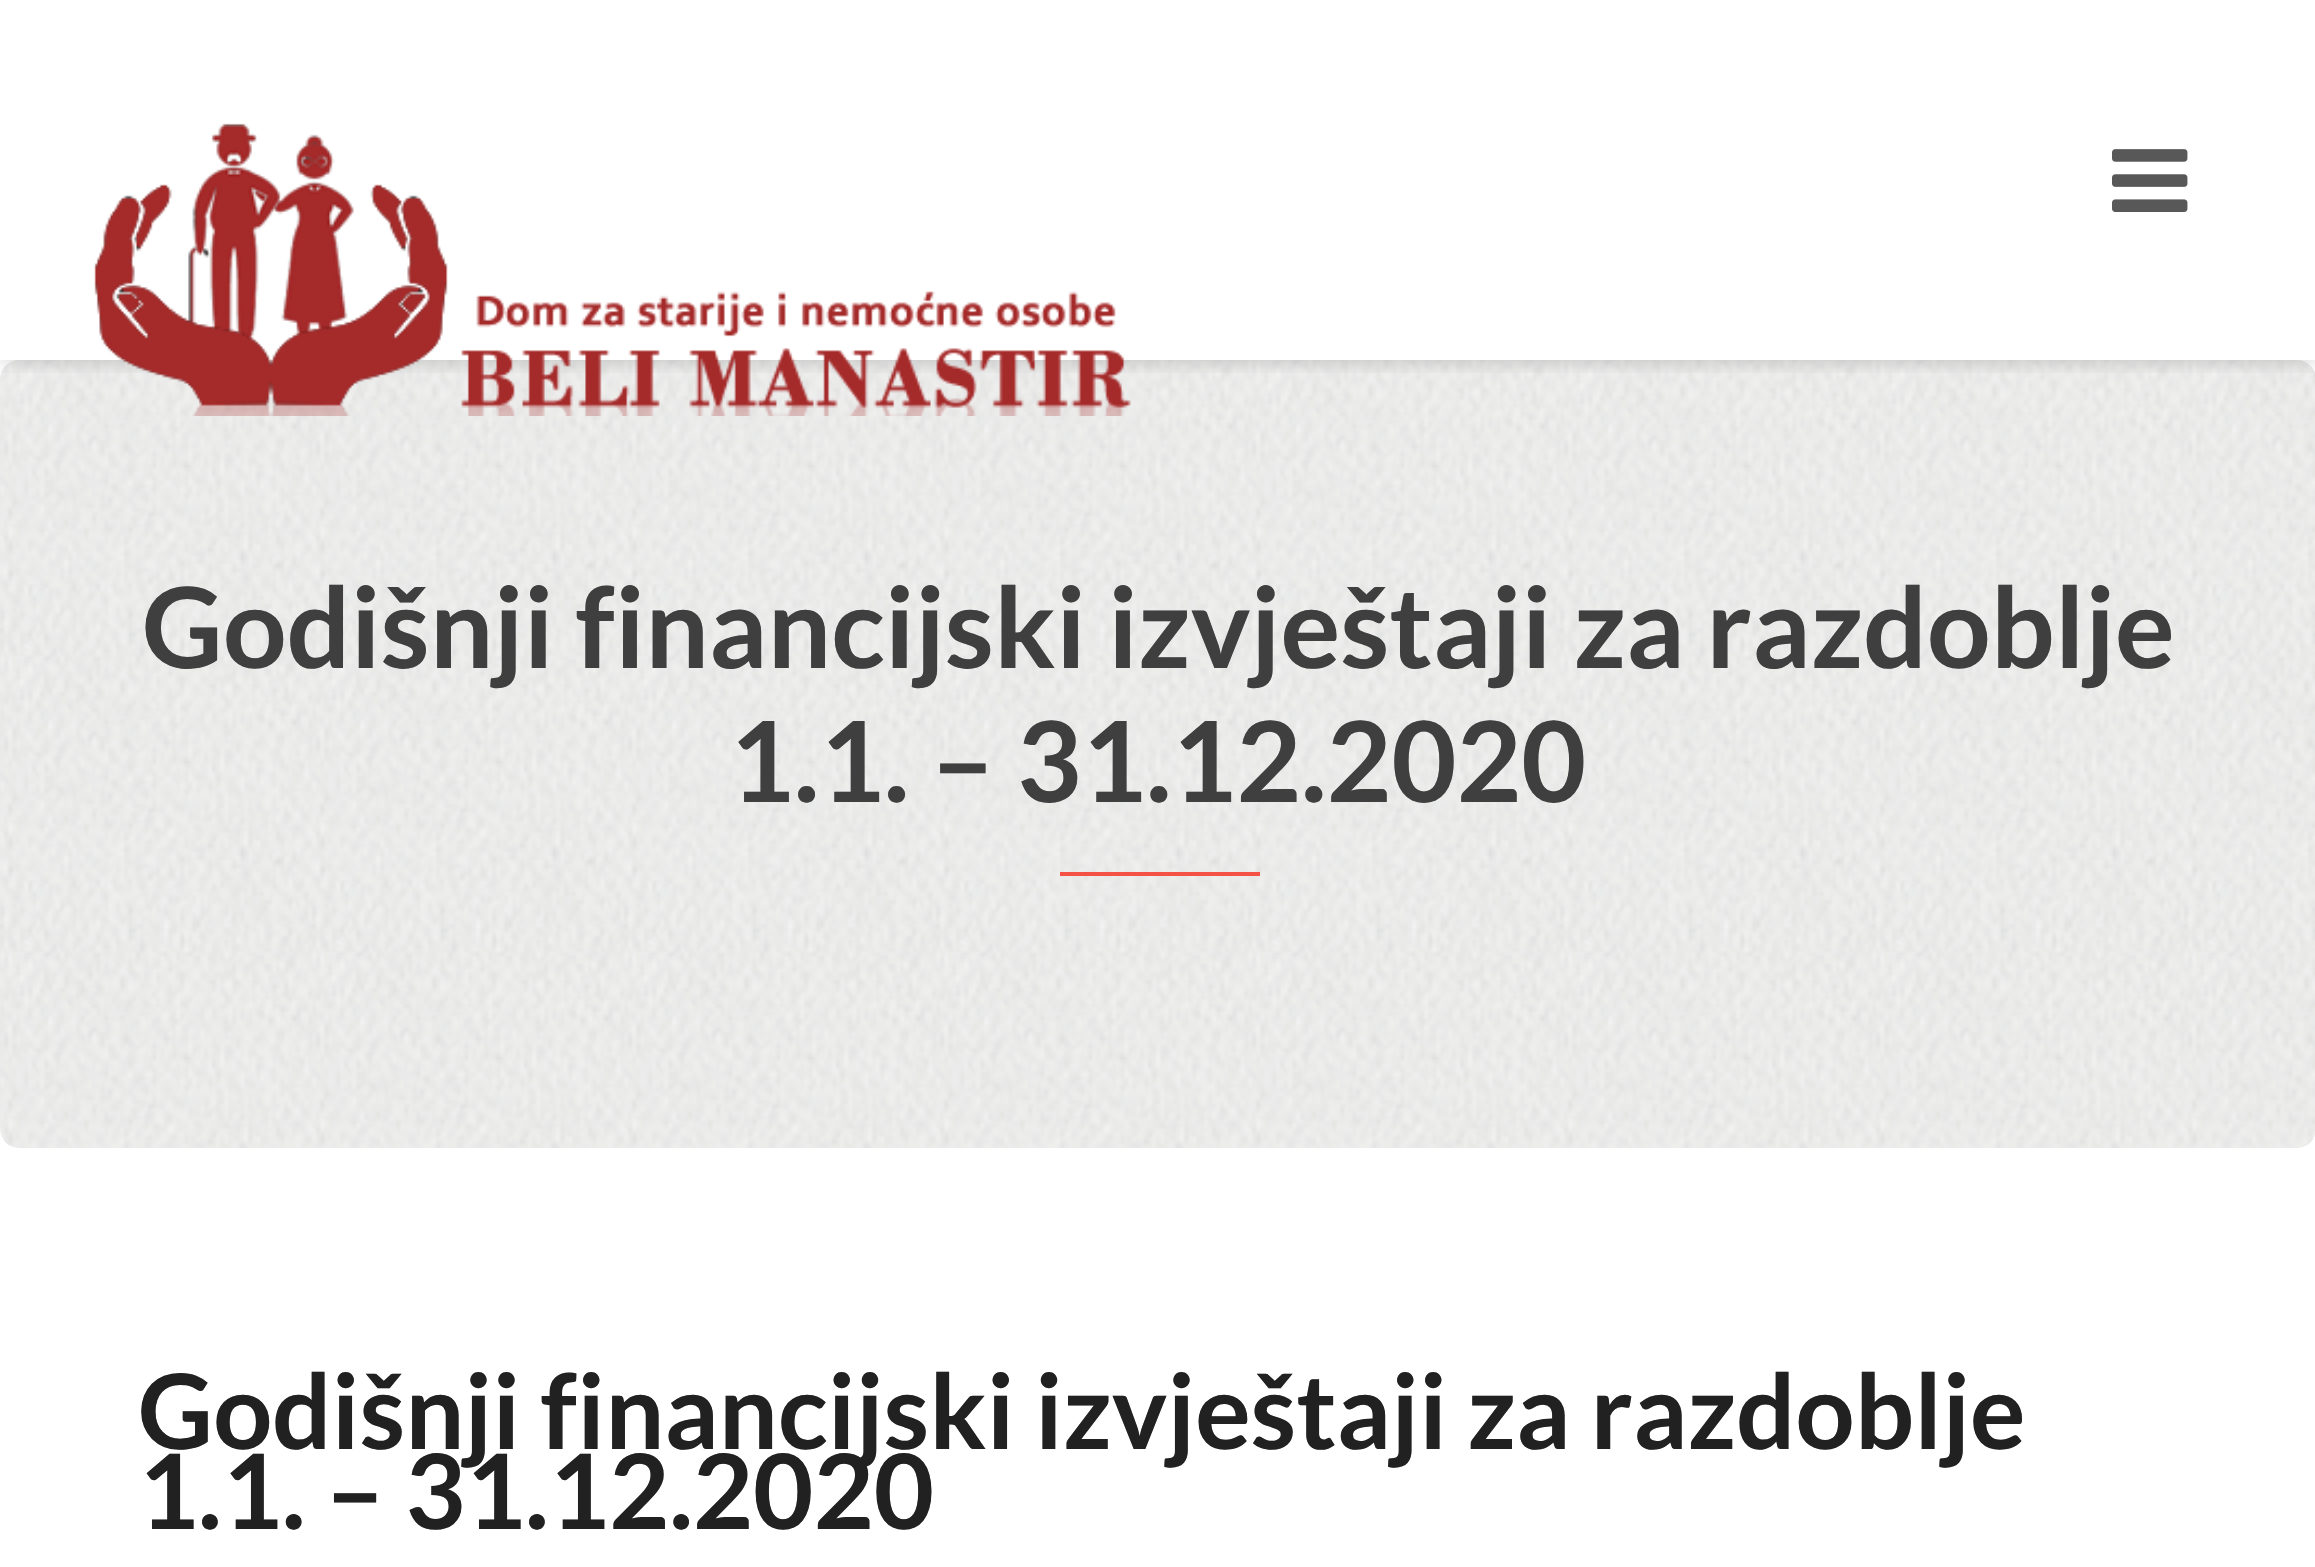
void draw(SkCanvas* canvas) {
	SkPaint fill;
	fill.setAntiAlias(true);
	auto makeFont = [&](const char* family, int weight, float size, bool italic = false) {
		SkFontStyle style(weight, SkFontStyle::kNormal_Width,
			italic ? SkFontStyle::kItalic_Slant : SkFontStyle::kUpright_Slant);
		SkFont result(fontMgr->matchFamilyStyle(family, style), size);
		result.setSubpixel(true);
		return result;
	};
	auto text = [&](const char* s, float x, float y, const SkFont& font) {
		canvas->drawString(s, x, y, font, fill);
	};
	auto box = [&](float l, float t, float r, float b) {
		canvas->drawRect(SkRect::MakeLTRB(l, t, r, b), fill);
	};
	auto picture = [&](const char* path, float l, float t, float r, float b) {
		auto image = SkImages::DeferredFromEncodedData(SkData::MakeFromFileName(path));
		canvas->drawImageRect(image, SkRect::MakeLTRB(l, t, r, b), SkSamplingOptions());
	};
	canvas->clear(0xFFFFFFFF);
	picture("image2.png", 0, 360, 2315, 1148);
	canvas->save();
	canvas->clipRect(SkRect::MakeLTRB(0, 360, 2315, 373));
	fill.setColor(0x33000000);
	fill.setMaskFilter(SkMaskFilter::MakeBlur(kNormal_SkBlurStyle, 10));
	canvas->drawRect(SkRect::MakeLTRB(0, 0, 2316, 360), fill);
	fill.setMaskFilter(nullptr);
	canvas->restore();
	picture("image0.png", 94, 123, 1131, 416);
	picture("image1.png", 2112, 149, 2188, 212);
	fill.setColor(0xFFF55145);
	box(1060, 872, 1260, 876);
	auto font1 = makeFont("Lato", 700, 112);
	fill.setColor(0xFF3F3F3F);
	text("Godišnji financijski izvještaji za razdoblje", 142, 668, font1);
	text("1.1. – 31.12.2020", 729, 802, font1);
	auto font2 = makeFont("Lato", 700, 104);
	fill.setColor(0xFF212121);
	text("Godišnji financijski izvještaji za razdoblje", 138, 1449, font2);
	text("1.1. – 31.12.2020", 138, 1529, font2);
}
